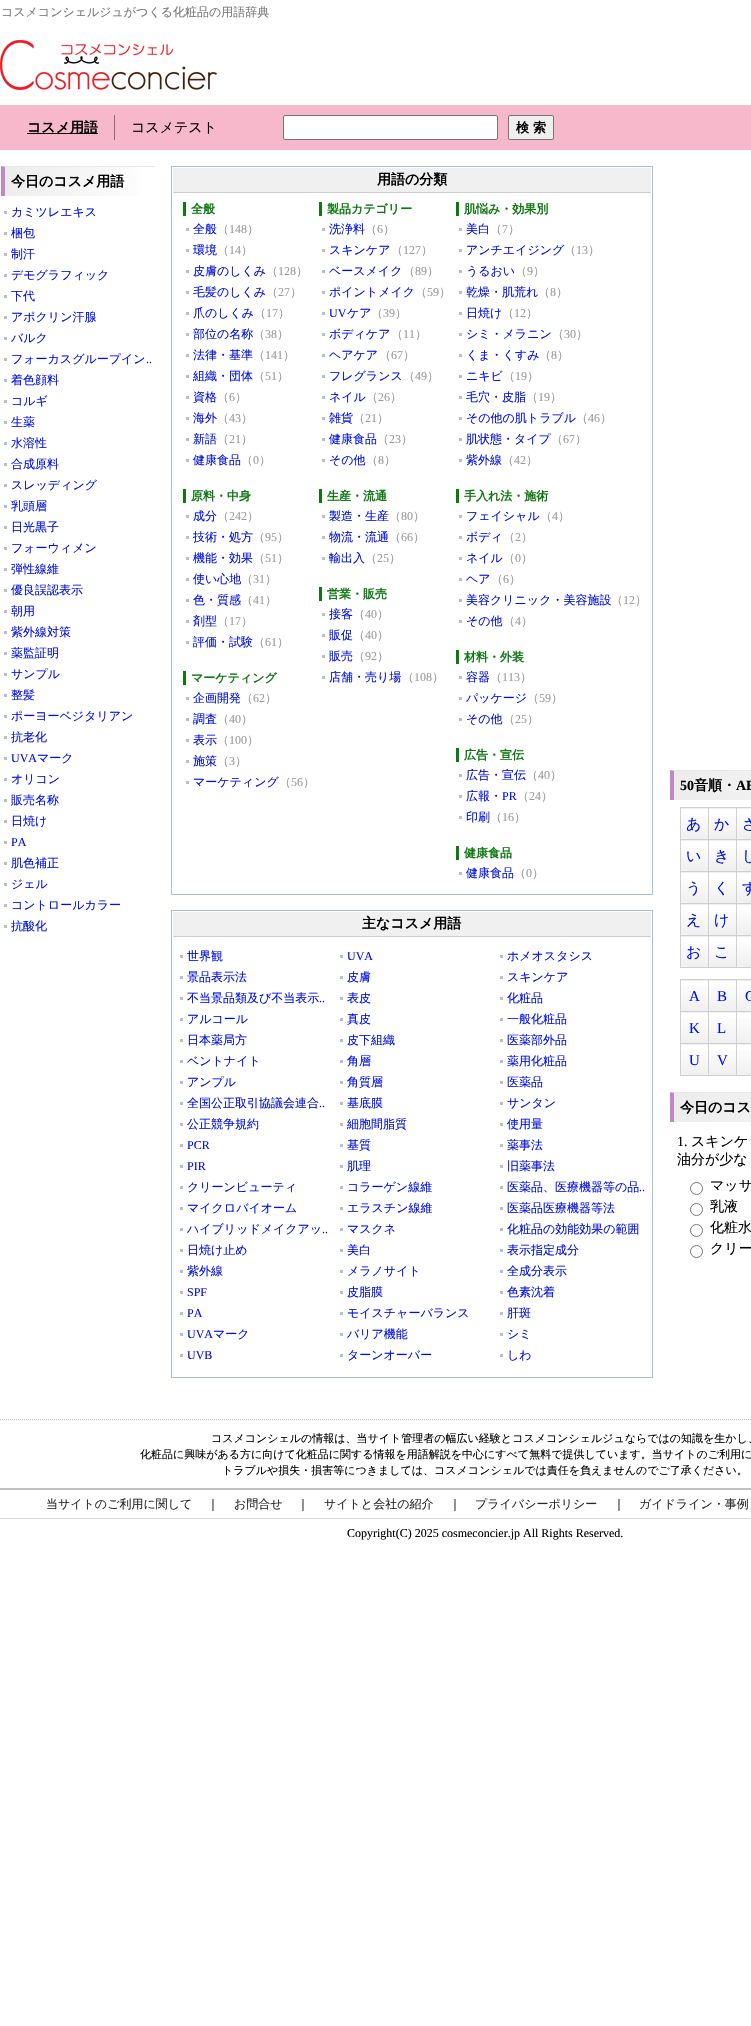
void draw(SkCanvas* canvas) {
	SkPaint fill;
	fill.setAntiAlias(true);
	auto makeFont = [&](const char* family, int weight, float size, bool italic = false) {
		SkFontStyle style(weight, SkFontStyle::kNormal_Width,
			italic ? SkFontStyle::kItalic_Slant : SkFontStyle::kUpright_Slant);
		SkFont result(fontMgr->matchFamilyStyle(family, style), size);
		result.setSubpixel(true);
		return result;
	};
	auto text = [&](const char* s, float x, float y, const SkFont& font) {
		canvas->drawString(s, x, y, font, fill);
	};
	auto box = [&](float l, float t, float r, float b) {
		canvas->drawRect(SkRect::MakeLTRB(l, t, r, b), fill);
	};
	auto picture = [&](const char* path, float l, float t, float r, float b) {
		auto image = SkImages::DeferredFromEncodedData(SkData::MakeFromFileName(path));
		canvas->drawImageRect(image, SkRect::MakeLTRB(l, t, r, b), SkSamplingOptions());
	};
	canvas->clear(0xFFFFFFFF);
	picture("image0.png", 0, 40, 217, 90);
	fill.setColor(0xFFF6B8CA);
	box(0, 105, 751, 150);
	fill.setColor(0xFF8D6A76);
	box(114, 115, 115, 140);
	fill.setColor(0xFF000000);
	box(27, 133, 98, 134);
	fill.setColor(0xFFFFFFFF);
	canvas->drawRoundRect(SkRect::MakeLTRB(283.5f, 115.5f, 497.5f, 139.5f), 1.5f, 1.5f, fill);
	fill.setStyle(SkPaint::kStroke_Style);
	fill.setStrokeWidth(1);
	fill.setColor(0xFF767676);
	canvas->drawRoundRect(SkRect::MakeLTRB(283.5f, 115.5f, 497.5f, 139.5f), 1.5f, 1.5f, fill);
	fill.setStyle(SkPaint::kFill_Style);
	fill.setColor(0xFFEFEFEF);
	canvas->drawRoundRect(SkRect::MakeLTRB(508.5f, 115.5f, 553.5f, 139.5f), 1.5f, 1.5f, fill);
	fill.setStyle(SkPaint::kStroke_Style);
	fill.setColor(0xFF767676);
	canvas->drawRoundRect(SkRect::MakeLTRB(508.5f, 115.5f, 553.5f, 139.5f), 1.5f, 1.5f, fill);
	fill.setStyle(SkPaint::kFill_Style);
	{
		const SkColor colors[] = {0xFFECECEC, 0xFFFFFFFF};
		const float stops[] = {0, 1};
		const SkPoint ends[] = {{5, 167}, {155, 196}};
		fill.setShader(SkGradientShader::MakeLinear(ends, colors, stops, 2, SkTileMode::kClamp));
		fill.setAlpha(255);
	}
	box(5, 167, 140, 196);
	fill.setShader(nullptr);
	fill.setColor(0xFFE8E8E8);
	canvas->drawPath(SkPathBuilder().moveTo(1, 166).lineTo(155, 166).lineTo(155, 167).lineTo(5, 167).close().detach(), fill);
	fill.setColor(0xFFBF89C5);
	canvas->drawPath(SkPathBuilder().moveTo(1, 196).lineTo(1, 166).lineTo(5, 167).lineTo(5, 196).close().detach(), fill);
	fill.setColor(0xFFB2C0D0);
	box(4, 211, 7, 214);
	box(4, 232, 7, 235);
	box(4, 253, 7, 256);
	box(4, 274, 7, 277);
	box(4, 295, 7, 298);
	box(4, 316, 7, 319);
	box(4, 337, 7, 340);
	box(4, 358, 7, 361);
	box(4, 379, 7, 382);
	box(4, 400, 7, 403);
	box(4, 421, 7, 424);
	box(4, 442, 7, 445);
	box(4, 463, 7, 466);
	box(4, 484, 7, 487);
	box(4, 505, 7, 508);
	box(4, 526, 7, 529);
	box(4, 547, 7, 550);
	box(4, 568, 7, 571);
	box(4, 589, 7, 592);
	box(4, 610, 7, 613);
	box(4, 631, 7, 634);
	box(4, 652, 7, 655);
	box(4, 673, 7, 676);
	box(4, 694, 7, 697);
	box(4, 715, 7, 718);
	box(4, 736, 7, 739);
	box(4, 757, 7, 760);
	box(4, 778, 7, 781);
	box(4, 799, 7, 802);
	box(4, 820, 7, 823);
	box(4, 841, 7, 844);
	box(4, 862, 7, 865);
	box(4, 883, 7, 886);
	box(4, 904, 7, 907);
	box(4, 925, 7, 928);
	fill.setStyle(SkPaint::kStroke_Style);
	fill.setColor(0xFFA8BFD9);
	canvas->drawRect(SkRect::MakeLTRB(171.5f, 166.5f, 652.5f, 894.5f), fill);
	fill.setStyle(SkPaint::kFill_Style);
	fill.setColor(0xFFF0F0F0);
	box(173, 168, 651, 192);
	fill.setColor(0xFFCCCCCC);
	box(173, 192, 651, 193);
	fill.setColor(0xFF0E7912);
	box(183, 202, 186, 216);
	fill.setColor(0xFFB2C0D0);
	box(186, 228, 189, 231);
	box(186, 249, 189, 252);
	box(186, 270, 189, 273);
	box(186, 291, 189, 294);
	box(186, 312, 189, 315);
	box(186, 333, 189, 336);
	box(186, 354, 189, 357);
	box(186, 375, 189, 378);
	box(186, 396, 189, 399);
	box(186, 417, 189, 420);
	box(186, 438, 189, 441);
	box(186, 459, 189, 462);
	fill.setColor(0xFF0E7912);
	box(183, 489, 186, 503);
	fill.setColor(0xFFB2C0D0);
	box(186, 515, 189, 518);
	box(186, 536, 189, 539);
	box(186, 557, 189, 560);
	box(186, 578, 189, 581);
	box(186, 599, 189, 602);
	box(186, 620, 189, 623);
	box(186, 641, 189, 644);
	fill.setColor(0xFF0E7912);
	box(183, 671, 186, 685);
	fill.setColor(0xFFB2C0D0);
	box(186, 697, 189, 700);
	box(186, 718, 189, 721);
	box(186, 739, 189, 742);
	box(186, 760, 189, 763);
	box(186, 781, 189, 784);
	fill.setColor(0xFF0E7912);
	box(319, 202, 322, 216);
	fill.setColor(0xFFB2C0D0);
	box(322, 228, 325, 231);
	box(322, 249, 325, 252);
	box(322, 270, 325, 273);
	box(322, 291, 325, 294);
	box(322, 312, 325, 315);
	box(322, 333, 325, 336);
	box(322, 354, 325, 357);
	box(322, 375, 325, 378);
	box(322, 396, 325, 399);
	box(322, 417, 325, 420);
	box(322, 438, 325, 441);
	box(322, 459, 325, 462);
	fill.setColor(0xFF0E7912);
	box(319, 489, 322, 503);
	fill.setColor(0xFFB2C0D0);
	box(322, 515, 325, 518);
	box(322, 536, 325, 539);
	box(322, 557, 325, 560);
	fill.setColor(0xFF0E7912);
	box(319, 587, 322, 601);
	fill.setColor(0xFFB2C0D0);
	box(322, 613, 325, 616);
	box(322, 634, 325, 637);
	box(322, 655, 325, 658);
	box(322, 676, 325, 679);
	fill.setColor(0xFF0E7912);
	box(456, 202, 459, 216);
	fill.setColor(0xFFB2C0D0);
	box(459, 228, 462, 231);
	box(459, 249, 462, 252);
	box(459, 270, 462, 273);
	box(459, 291, 462, 294);
	box(459, 312, 462, 315);
	box(459, 333, 462, 336);
	box(459, 354, 462, 357);
	box(459, 375, 462, 378);
	box(459, 396, 462, 399);
	box(459, 417, 462, 420);
	box(459, 438, 462, 441);
	box(459, 459, 462, 462);
	fill.setColor(0xFF0E7912);
	box(456, 489, 459, 503);
	fill.setColor(0xFFB2C0D0);
	box(459, 515, 462, 518);
	box(459, 536, 462, 539);
	box(459, 557, 462, 560);
	box(459, 578, 462, 581);
	box(459, 599, 462, 602);
	box(459, 620, 462, 623);
	fill.setColor(0xFF0E7912);
	box(456, 650, 459, 664);
	fill.setColor(0xFFB2C0D0);
	box(459, 676, 462, 679);
	box(459, 697, 462, 700);
	box(459, 718, 462, 721);
	fill.setColor(0xFF0E7912);
	box(456, 748, 459, 762);
	fill.setColor(0xFFB2C0D0);
	box(459, 774, 462, 777);
	box(459, 795, 462, 798);
	box(459, 816, 462, 819);
	fill.setColor(0xFF0E7912);
	box(456, 846, 459, 860);
	fill.setColor(0xFFB2C0D0);
	box(459, 872, 462, 875);
	fill.setStyle(SkPaint::kStroke_Style);
	fill.setColor(0xFFA8BFD9);
	canvas->drawRect(SkRect::MakeLTRB(171.5f, 910.5f, 652.5f, 1377.5f), fill);
	fill.setStyle(SkPaint::kFill_Style);
	fill.setColor(0xFFF0F0F0);
	box(173, 912, 651, 936);
	fill.setColor(0xFFCCCCCC);
	box(173, 936, 651, 937);
	fill.setColor(0xFFB2C0D0);
	box(180, 955, 183, 958);
	box(180, 976, 183, 979);
	box(180, 997, 183, 1000);
	box(180, 1018, 183, 1021);
	box(180, 1039, 183, 1042);
	box(180, 1060, 183, 1063);
	box(180, 1081, 183, 1084);
	box(180, 1102, 183, 1105);
	box(180, 1123, 183, 1126);
	box(180, 1144, 183, 1147);
	box(180, 1165, 183, 1168);
	box(180, 1186, 183, 1189);
	box(180, 1207, 183, 1210);
	box(180, 1228, 183, 1231);
	box(180, 1249, 183, 1252);
	box(180, 1270, 183, 1273);
	box(180, 1291, 183, 1294);
	box(180, 1312, 183, 1315);
	box(180, 1333, 183, 1336);
	box(180, 1354, 183, 1357);
	box(340, 955, 343, 958);
	box(340, 976, 343, 979);
	box(340, 997, 343, 1000);
	box(340, 1018, 343, 1021);
	box(340, 1039, 343, 1042);
	box(340, 1060, 343, 1063);
	box(340, 1081, 343, 1084);
	box(340, 1102, 343, 1105);
	box(340, 1123, 343, 1126);
	box(340, 1144, 343, 1147);
	box(340, 1165, 343, 1168);
	box(340, 1186, 343, 1189);
	box(340, 1207, 343, 1210);
	box(340, 1228, 343, 1231);
	box(340, 1249, 343, 1252);
	box(340, 1270, 343, 1273);
	box(340, 1291, 343, 1294);
	box(340, 1312, 343, 1315);
	box(340, 1333, 343, 1336);
	box(340, 1354, 343, 1357);
	box(500, 955, 503, 958);
	box(500, 976, 503, 979);
	box(500, 997, 503, 1000);
	box(500, 1018, 503, 1021);
	box(500, 1039, 503, 1042);
	box(500, 1060, 503, 1063);
	box(500, 1081, 503, 1084);
	box(500, 1102, 503, 1105);
	box(500, 1123, 503, 1126);
	box(500, 1144, 503, 1147);
	box(500, 1165, 503, 1168);
	box(500, 1186, 503, 1189);
	box(500, 1207, 503, 1210);
	box(500, 1228, 503, 1231);
	box(500, 1249, 503, 1252);
	box(500, 1270, 503, 1273);
	box(500, 1291, 503, 1294);
	box(500, 1312, 503, 1315);
	box(500, 1333, 503, 1336);
	box(500, 1354, 503, 1357);
	{
		const SkColor colors[] = {0xFFECECEC, 0xFFFFFFFF};
		const float stops[] = {0, 1};
		const SkPoint ends[] = {{674, 771}, {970, 800}};
		fill.setShader(SkGradientShader::MakeLinear(ends, colors, stops, 2, SkTileMode::kClamp));
		fill.setAlpha(255);
	}
	box(674, 771, 751, 800);
	fill.setShader(nullptr);
	fill.setColor(0xFFE8E8E8);
	canvas->drawPath(SkPathBuilder().moveTo(670, 770).lineTo(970, 770).lineTo(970, 771).lineTo(674, 771).close().detach(), fill);
	fill.setColor(0xFFBF89C5);
	canvas->drawPath(SkPathBuilder().moveTo(670, 800).lineTo(670, 770).lineTo(674, 771).lineTo(674, 800).close().detach(), fill);
	{
		const SkColor colors[] = {0xFFFFFFFF, 0xFFF0F0F0};
		const float stops[] = {0, 1};
		const SkPoint ends[] = {{681, 779}, {681, 809}};
		fill.setShader(SkGradientShader::MakeLinear(ends, colors, stops, 2, SkTileMode::kClamp));
		fill.setAlpha(255);
	}
	box(680, 808, 708, 809);
	{
		const SkColor colors[] = {0xFFFFFFFF, 0xFFF0F0F0};
		const float stops[] = {0, 1};
		const SkPoint ends[] = {{681, 809}, {681, 839}};
		fill.setShader(SkGradientShader::MakeLinear(ends, colors, stops, 2, SkTileMode::kClamp));
		fill.setAlpha(255);
	}
	box(681, 814, 708, 839);
	fill.setShader(nullptr);
	fill.setColor(0xFFD0D0D0);
	box(736, 807, 751, 808);
	{
		const SkColor colors[] = {0xFFFFFFFF, 0xFFF0F0F0};
		const float stops[] = {0, 1};
		const SkPoint ends[] = {{737, 779}, {737, 809}};
		fill.setShader(SkGradientShader::MakeLinear(ends, colors, stops, 2, SkTileMode::kClamp));
		fill.setAlpha(255);
	}
	box(736, 808, 751, 809);
	fill.setShader(nullptr);
	fill.setColor(0xFFD0D0D0);
	box(736, 839, 751, 840);
	{
		const SkColor colors[] = {0xFFFFFFFF, 0xFFF0F0F0};
		const float stops[] = {0, 1};
		const SkPoint ends[] = {{737, 811}, {737, 841}};
		fill.setShader(SkGradientShader::MakeLinear(ends, colors, stops, 2, SkTileMode::kClamp));
		fill.setAlpha(255);
	}
	box(736, 840, 751, 841);
	fill.setShader(nullptr);
	fill.setColor(0xFFD0D0D0);
	box(736, 871, 751, 872);
	{
		const SkColor colors[] = {0xFFFFFFFF, 0xFFF0F0F0};
		const float stops[] = {0, 1};
		const SkPoint ends[] = {{737, 843}, {737, 873}};
		fill.setShader(SkGradientShader::MakeLinear(ends, colors, stops, 2, SkTileMode::kClamp));
		fill.setAlpha(255);
	}
	box(736, 872, 751, 873);
	fill.setShader(nullptr);
	fill.setColor(0xFFD0D0D0);
	box(736, 903, 751, 904);
	{
		const SkColor colors[] = {0xFFFFFFFF, 0xFFF0F0F0};
		const float stops[] = {0, 1};
		const SkPoint ends[] = {{737, 875}, {737, 905}};
		fill.setShader(SkGradientShader::MakeLinear(ends, colors, stops, 2, SkTileMode::kClamp));
		fill.setAlpha(255);
	}
	box(736, 904, 751, 905);
	fill.setShader(nullptr);
	fill.setColor(0xFFD0D0D0);
	box(736, 935, 751, 936);
	{
		const SkColor colors[] = {0xFFFFFFFF, 0xFFF0F0F0};
		const float stops[] = {0, 1};
		const SkPoint ends[] = {{737, 907}, {737, 937}};
		fill.setShader(SkGradientShader::MakeLinear(ends, colors, stops, 2, SkTileMode::kClamp));
		fill.setAlpha(255);
	}
	box(736, 936, 751, 937);
	fill.setShader(nullptr);
	fill.setColor(0xFFD0D0D0);
	box(736, 967, 751, 968);
	box(736, 935, 737, 968);
	box(708, 935, 737, 936);
	box(736, 903, 737, 936);
	box(708, 903, 737, 904);
	box(736, 871, 737, 904);
	box(708, 871, 737, 872);
	box(736, 839, 737, 872);
	box(708, 839, 737, 840);
	box(736, 807, 737, 840);
	box(708, 807, 737, 808);
	{
		const SkColor colors[] = {0xFFFFFFFF, 0xFFF0F0F0};
		const float stops[] = {0, 1};
		const SkPoint ends[] = {{709, 779}, {709, 809}};
		fill.setShader(SkGradientShader::MakeLinear(ends, colors, stops, 2, SkTileMode::kClamp));
		fill.setAlpha(255);
	}
	box(708, 808, 736, 809);
	{
		const SkColor colors[] = {0xFFFFFFFF, 0xFFF0F0F0};
		const float stops[] = {0, 1};
		const SkPoint ends[] = {{709, 811}, {709, 841}};
		fill.setShader(SkGradientShader::MakeLinear(ends, colors, stops, 2, SkTileMode::kClamp));
		fill.setAlpha(255);
	}
	box(708, 840, 736, 841);
	{
		const SkColor colors[] = {0xFFFFFFFF, 0xFFF0F0F0};
		const float stops[] = {0, 1};
		const SkPoint ends[] = {{709, 843}, {709, 873}};
		fill.setShader(SkGradientShader::MakeLinear(ends, colors, stops, 2, SkTileMode::kClamp));
		fill.setAlpha(255);
	}
	box(708, 872, 736, 873);
	{
		const SkColor colors[] = {0xFFFFFFFF, 0xFFF0F0F0};
		const float stops[] = {0, 1};
		const SkPoint ends[] = {{709, 875}, {709, 905}};
		fill.setShader(SkGradientShader::MakeLinear(ends, colors, stops, 2, SkTileMode::kClamp));
		fill.setAlpha(255);
	}
	box(708, 904, 736, 905);
	{
		const SkColor colors[] = {0xFFFFFFFF, 0xFFF0F0F0};
		const float stops[] = {0, 1};
		const SkPoint ends[] = {{709, 907}, {709, 937}};
		fill.setShader(SkGradientShader::MakeLinear(ends, colors, stops, 2, SkTileMode::kClamp));
		fill.setAlpha(255);
	}
	box(708, 936, 736, 937);
	fill.setShader(nullptr);
	fill.setColor(0xFFD0D0D0);
	box(708, 967, 737, 968);
	box(708, 935, 709, 968);
	box(680, 935, 709, 936);
	box(708, 903, 709, 936);
	box(680, 903, 709, 904);
	box(708, 871, 709, 904);
	box(680, 871, 709, 872);
	box(708, 839, 709, 872);
	box(680, 839, 709, 840);
	box(708, 807, 709, 840);
	box(680, 807, 709, 808);
	{
		const SkColor colors[] = {0xFFFFFFFF, 0xFFF0F0F0};
		const float stops[] = {0, 1};
		const SkPoint ends[] = {{681, 811}, {681, 841}};
		fill.setShader(SkGradientShader::MakeLinear(ends, colors, stops, 2, SkTileMode::kClamp));
		fill.setAlpha(255);
	}
	box(680, 840, 708, 841);
	{
		const SkColor colors[] = {0xFFFFFFFF, 0xFFF0F0F0};
		const float stops[] = {0, 1};
		const SkPoint ends[] = {{681, 843}, {681, 873}};
		fill.setShader(SkGradientShader::MakeLinear(ends, colors, stops, 2, SkTileMode::kClamp));
		fill.setAlpha(255);
	}
	box(680, 872, 708, 873);
	{
		const SkColor colors[] = {0xFFFFFFFF, 0xFFF0F0F0};
		const float stops[] = {0, 1};
		const SkPoint ends[] = {{681, 875}, {681, 905}};
		fill.setShader(SkGradientShader::MakeLinear(ends, colors, stops, 2, SkTileMode::kClamp));
		fill.setAlpha(255);
	}
	box(680, 904, 708, 905);
	{
		const SkColor colors[] = {0xFFFFFFFF, 0xFFF0F0F0};
		const float stops[] = {0, 1};
		const SkPoint ends[] = {{681, 907}, {681, 937}};
		fill.setShader(SkGradientShader::MakeLinear(ends, colors, stops, 2, SkTileMode::kClamp));
		fill.setAlpha(255);
	}
	box(680, 936, 708, 937);
	fill.setShader(nullptr);
	fill.setColor(0xFFD0D0D0);
	box(680, 967, 709, 968);
	box(680, 935, 681, 968);
	box(680, 903, 681, 936);
	box(680, 871, 681, 904);
	box(680, 839, 681, 872);
	box(680, 807, 681, 840);
	{
		const SkColor colors[] = {0xFFFFFFFF, 0xFFF0F0F0};
		const float stops[] = {0, 1};
		const SkPoint ends[] = {{709, 809}, {709, 839}};
		fill.setShader(SkGradientShader::MakeLinear(ends, colors, stops, 2, SkTileMode::kClamp));
		fill.setAlpha(255);
	}
	box(709, 814, 736, 839);
	{
		const SkColor colors[] = {0xFFFFFFFF, 0xFFF0F0F0};
		const float stops[] = {0, 1};
		const SkPoint ends[] = {{737, 809}, {737, 839}};
		fill.setShader(SkGradientShader::MakeLinear(ends, colors, stops, 2, SkTileMode::kClamp));
		fill.setAlpha(255);
	}
	box(737, 814, 751, 839);
	{
		const SkColor colors[] = {0xFFFFFFFF, 0xFFF0F0F0};
		const float stops[] = {0, 1};
		const SkPoint ends[] = {{681, 841}, {681, 871}};
		fill.setShader(SkGradientShader::MakeLinear(ends, colors, stops, 2, SkTileMode::kClamp));
		fill.setAlpha(255);
	}
	box(681, 846, 708, 871);
	{
		const SkColor colors[] = {0xFFFFFFFF, 0xFFF0F0F0};
		const float stops[] = {0, 1};
		const SkPoint ends[] = {{709, 841}, {709, 871}};
		fill.setShader(SkGradientShader::MakeLinear(ends, colors, stops, 2, SkTileMode::kClamp));
		fill.setAlpha(255);
	}
	box(709, 846, 736, 871);
	{
		const SkColor colors[] = {0xFFFFFFFF, 0xFFF0F0F0};
		const float stops[] = {0, 1};
		const SkPoint ends[] = {{737, 841}, {737, 871}};
		fill.setShader(SkGradientShader::MakeLinear(ends, colors, stops, 2, SkTileMode::kClamp));
		fill.setAlpha(255);
	}
	box(737, 846, 751, 871);
	{
		const SkColor colors[] = {0xFFFFFFFF, 0xFFF0F0F0};
		const float stops[] = {0, 1};
		const SkPoint ends[] = {{681, 873}, {681, 903}};
		fill.setShader(SkGradientShader::MakeLinear(ends, colors, stops, 2, SkTileMode::kClamp));
		fill.setAlpha(255);
	}
	box(681, 878, 708, 903);
	{
		const SkColor colors[] = {0xFFFFFFFF, 0xFFF0F0F0};
		const float stops[] = {0, 1};
		const SkPoint ends[] = {{709, 873}, {709, 903}};
		fill.setShader(SkGradientShader::MakeLinear(ends, colors, stops, 2, SkTileMode::kClamp));
		fill.setAlpha(255);
	}
	box(709, 878, 736, 903);
	{
		const SkColor colors[] = {0xFFFFFFFF, 0xFFF0F0F0};
		const float stops[] = {0, 1};
		const SkPoint ends[] = {{737, 873}, {737, 903}};
		fill.setShader(SkGradientShader::MakeLinear(ends, colors, stops, 2, SkTileMode::kClamp));
		fill.setAlpha(255);
	}
	box(737, 878, 751, 903);
	{
		const SkColor colors[] = {0xFFFFFFFF, 0xFFF0F0F0};
		const float stops[] = {0, 1};
		const SkPoint ends[] = {{681, 905}, {681, 935}};
		fill.setShader(SkGradientShader::MakeLinear(ends, colors, stops, 2, SkTileMode::kClamp));
		fill.setAlpha(255);
	}
	box(681, 910, 708, 935);
	{
		const SkColor colors[] = {0xFFFFFFFF, 0xFFF0F0F0};
		const float stops[] = {0, 1};
		const SkPoint ends[] = {{709, 905}, {709, 935}};
		fill.setShader(SkGradientShader::MakeLinear(ends, colors, stops, 2, SkTileMode::kClamp));
		fill.setAlpha(255);
	}
	box(709, 910, 736, 935);
	{
		const SkColor colors[] = {0xFFFFFFFF, 0xFFF0F0F0};
		const float stops[] = {0, 1};
		const SkPoint ends[] = {{737, 905}, {737, 935}};
		fill.setShader(SkGradientShader::MakeLinear(ends, colors, stops, 2, SkTileMode::kClamp));
		fill.setAlpha(255);
	}
	box(737, 910, 751, 935);
	{
		const SkColor colors[] = {0xFFFFFFFF, 0xFFF0F0F0};
		const float stops[] = {0, 1};
		const SkPoint ends[] = {{681, 937}, {681, 967}};
		fill.setShader(SkGradientShader::MakeLinear(ends, colors, stops, 2, SkTileMode::kClamp));
		fill.setAlpha(255);
	}
	box(681, 942, 708, 967);
	{
		const SkColor colors[] = {0xFFFFFFFF, 0xFFF0F0F0};
		const float stops[] = {0, 1};
		const SkPoint ends[] = {{709, 937}, {709, 967}};
		fill.setShader(SkGradientShader::MakeLinear(ends, colors, stops, 2, SkTileMode::kClamp));
		fill.setAlpha(255);
	}
	box(709, 942, 736, 967);
	{
		const SkColor colors[] = {0xFFFFFFFF, 0xFFF0F0F0};
		const float stops[] = {0, 1};
		const SkPoint ends[] = {{737, 937}, {737, 967}};
		fill.setShader(SkGradientShader::MakeLinear(ends, colors, stops, 2, SkTileMode::kClamp));
		fill.setAlpha(255);
	}
	box(737, 942, 751, 967);
	{
		const SkColor colors[] = {0xFFFFFFFF, 0xFFF0F0F0};
		const float stops[] = {0, 1};
		const SkPoint ends[] = {{681, 951}, {681, 981}};
		fill.setShader(SkGradientShader::MakeLinear(ends, colors, stops, 2, SkTileMode::kClamp));
		fill.setAlpha(255);
	}
	box(680, 980, 708, 981);
	{
		const SkColor colors[] = {0xFFFFFFFF, 0xFFF0F0F0};
		const float stops[] = {0, 1};
		const SkPoint ends[] = {{681, 981}, {681, 1011}};
		fill.setShader(SkGradientShader::MakeLinear(ends, colors, stops, 2, SkTileMode::kClamp));
		fill.setAlpha(255);
	}
	box(681, 986, 708, 1011);
	fill.setShader(nullptr);
	fill.setColor(0xFFD0D0D0);
	box(736, 979, 751, 980);
	{
		const SkColor colors[] = {0xFFFFFFFF, 0xFFF0F0F0};
		const float stops[] = {0, 1};
		const SkPoint ends[] = {{737, 951}, {737, 981}};
		fill.setShader(SkGradientShader::MakeLinear(ends, colors, stops, 2, SkTileMode::kClamp));
		fill.setAlpha(255);
	}
	box(736, 980, 751, 981);
	fill.setShader(nullptr);
	fill.setColor(0xFFD0D0D0);
	box(736, 1011, 751, 1012);
	{
		const SkColor colors[] = {0xFFFFFFFF, 0xFFF0F0F0};
		const float stops[] = {0, 1};
		const SkPoint ends[] = {{737, 983}, {737, 1013}};
		fill.setShader(SkGradientShader::MakeLinear(ends, colors, stops, 2, SkTileMode::kClamp));
		fill.setAlpha(255);
	}
	box(736, 1012, 751, 1013);
	fill.setShader(nullptr);
	fill.setColor(0xFFD0D0D0);
	box(736, 1043, 751, 1044);
	{
		const SkColor colors[] = {0xFFFFFFFF, 0xFFF0F0F0};
		const float stops[] = {0, 1};
		const SkPoint ends[] = {{737, 1015}, {737, 1045}};
		fill.setShader(SkGradientShader::MakeLinear(ends, colors, stops, 2, SkTileMode::kClamp));
		fill.setAlpha(255);
	}
	box(736, 1044, 751, 1045);
	fill.setShader(nullptr);
	fill.setColor(0xFFD0D0D0);
	box(736, 1075, 751, 1076);
	box(736, 1043, 737, 1076);
	box(708, 1043, 737, 1044);
	box(736, 1011, 737, 1044);
	box(708, 1011, 737, 1012);
	box(736, 979, 737, 1012);
	box(708, 979, 737, 980);
	{
		const SkColor colors[] = {0xFFFFFFFF, 0xFFF0F0F0};
		const float stops[] = {0, 1};
		const SkPoint ends[] = {{709, 951}, {709, 981}};
		fill.setShader(SkGradientShader::MakeLinear(ends, colors, stops, 2, SkTileMode::kClamp));
		fill.setAlpha(255);
	}
	box(708, 980, 736, 981);
	{
		const SkColor colors[] = {0xFFFFFFFF, 0xFFF0F0F0};
		const float stops[] = {0, 1};
		const SkPoint ends[] = {{709, 983}, {709, 1013}};
		fill.setShader(SkGradientShader::MakeLinear(ends, colors, stops, 2, SkTileMode::kClamp));
		fill.setAlpha(255);
	}
	box(708, 1012, 736, 1013);
	{
		const SkColor colors[] = {0xFFFFFFFF, 0xFFF0F0F0};
		const float stops[] = {0, 1};
		const SkPoint ends[] = {{709, 1015}, {709, 1045}};
		fill.setShader(SkGradientShader::MakeLinear(ends, colors, stops, 2, SkTileMode::kClamp));
		fill.setAlpha(255);
	}
	box(708, 1044, 736, 1045);
	fill.setShader(nullptr);
	fill.setColor(0xFFD0D0D0);
	box(708, 1075, 737, 1076);
	box(708, 1043, 709, 1076);
	box(680, 1043, 709, 1044);
	box(708, 1011, 709, 1044);
	box(680, 1011, 709, 1012);
	box(708, 979, 709, 1012);
	box(680, 979, 709, 980);
	{
		const SkColor colors[] = {0xFFFFFFFF, 0xFFF0F0F0};
		const float stops[] = {0, 1};
		const SkPoint ends[] = {{681, 983}, {681, 1013}};
		fill.setShader(SkGradientShader::MakeLinear(ends, colors, stops, 2, SkTileMode::kClamp));
		fill.setAlpha(255);
	}
	box(680, 1012, 708, 1013);
	{
		const SkColor colors[] = {0xFFFFFFFF, 0xFFF0F0F0};
		const float stops[] = {0, 1};
		const SkPoint ends[] = {{681, 1015}, {681, 1045}};
		fill.setShader(SkGradientShader::MakeLinear(ends, colors, stops, 2, SkTileMode::kClamp));
		fill.setAlpha(255);
	}
	box(680, 1044, 708, 1045);
	fill.setShader(nullptr);
	fill.setColor(0xFFD0D0D0);
	box(680, 1075, 709, 1076);
	box(680, 1043, 681, 1076);
	box(680, 1011, 681, 1044);
	box(680, 979, 681, 1012);
	{
		const SkColor colors[] = {0xFFFFFFFF, 0xFFF0F0F0};
		const float stops[] = {0, 1};
		const SkPoint ends[] = {{709, 981}, {709, 1011}};
		fill.setShader(SkGradientShader::MakeLinear(ends, colors, stops, 2, SkTileMode::kClamp));
		fill.setAlpha(255);
	}
	box(709, 986, 736, 1011);
	{
		const SkColor colors[] = {0xFFFFFFFF, 0xFFF0F0F0};
		const float stops[] = {0, 1};
		const SkPoint ends[] = {{737, 981}, {737, 1011}};
		fill.setShader(SkGradientShader::MakeLinear(ends, colors, stops, 2, SkTileMode::kClamp));
		fill.setAlpha(255);
	}
	box(737, 986, 751, 1011);
	{
		const SkColor colors[] = {0xFFFFFFFF, 0xFFF0F0F0};
		const float stops[] = {0, 1};
		const SkPoint ends[] = {{681, 1013}, {681, 1043}};
		fill.setShader(SkGradientShader::MakeLinear(ends, colors, stops, 2, SkTileMode::kClamp));
		fill.setAlpha(255);
	}
	box(681, 1018, 708, 1043);
	{
		const SkColor colors[] = {0xFFFFFFFF, 0xFFF0F0F0};
		const float stops[] = {0, 1};
		const SkPoint ends[] = {{709, 1013}, {709, 1043}};
		fill.setShader(SkGradientShader::MakeLinear(ends, colors, stops, 2, SkTileMode::kClamp));
		fill.setAlpha(255);
	}
	box(709, 1018, 736, 1043);
	{
		const SkColor colors[] = {0xFFFFFFFF, 0xFFF0F0F0};
		const float stops[] = {0, 1};
		const SkPoint ends[] = {{737, 1013}, {737, 1043}};
		fill.setShader(SkGradientShader::MakeLinear(ends, colors, stops, 2, SkTileMode::kClamp));
		fill.setAlpha(255);
	}
	box(737, 1018, 751, 1043);
	{
		const SkColor colors[] = {0xFFFFFFFF, 0xFFF0F0F0};
		const float stops[] = {0, 1};
		const SkPoint ends[] = {{681, 1045}, {681, 1075}};
		fill.setShader(SkGradientShader::MakeLinear(ends, colors, stops, 2, SkTileMode::kClamp));
		fill.setAlpha(255);
	}
	box(681, 1050, 708, 1075);
	{
		const SkColor colors[] = {0xFFFFFFFF, 0xFFF0F0F0};
		const float stops[] = {0, 1};
		const SkPoint ends[] = {{709, 1045}, {709, 1075}};
		fill.setShader(SkGradientShader::MakeLinear(ends, colors, stops, 2, SkTileMode::kClamp));
		fill.setAlpha(255);
	}
	box(709, 1050, 736, 1075);
	{
		const SkColor colors[] = {0xFFFFFFFF, 0xFFF0F0F0};
		const float stops[] = {0, 1};
		const SkPoint ends[] = {{737, 1045}, {737, 1075}};
		fill.setShader(SkGradientShader::MakeLinear(ends, colors, stops, 2, SkTileMode::kClamp));
		fill.setAlpha(255);
	}
	box(737, 1050, 751, 1075);
	{
		const SkColor colors[] = {0xFFECECEC, 0xFFFFFFFF};
		const float stops[] = {0, 1};
		const SkPoint ends[] = {{674, 1093}, {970, 1122}};
		fill.setShader(SkGradientShader::MakeLinear(ends, colors, stops, 2, SkTileMode::kClamp));
		fill.setAlpha(255);
	}
	box(674, 1093, 751, 1122);
	fill.setShader(nullptr);
	fill.setColor(0xFFE8E8E8);
	canvas->drawPath(SkPathBuilder().moveTo(670, 1092).lineTo(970, 1092).lineTo(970, 1093).lineTo(674, 1093).close().detach(), fill);
	fill.setColor(0xFFBF89C5);
	canvas->drawPath(SkPathBuilder().moveTo(670, 1122).lineTo(670, 1092).lineTo(674, 1093).lineTo(674, 1122).close().detach(), fill);
	fill.setStyle(SkPaint::kStroke_Style);
	fill.setColor(0xFF767676);
	canvas->drawCircle(696.5f, 1188.5f, 6, fill);
	canvas->drawCircle(696.5f, 1209.5f, 6, fill);
	canvas->drawCircle(696.5f, 1230.5f, 6, fill);
	canvas->drawCircle(696.5f, 1251.5f, 6, fill);
	fill.setColor(0xFFC0C0C0);
	fill.setPathEffect(SkDashPathEffect::Make({{1, 1}}, 0));
	canvas->drawPath(SkPathBuilder().moveTo(0, 1419.5f).lineTo(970, 1419.5f).detach(), fill);
	fill.setPathEffect(nullptr);
	fill.setStyle(SkPaint::kFill_Style);
	box(0, 1488, 751, 1490);
	fill.setColor(0xFFDBDBDB);
	box(0, 1518, 751, 1519);
	auto font1 = makeFont("WenQuanYi Zen Hei", 500, 12);
	fill.setColor(0xFF777777);
	text("コスメコンシェルジュがつくる化粧品の用語辞典", 1, 16, font1);
	auto font2 = makeFont("WenQuanYi Zen Hei", 700, 14);
	fill.setColor(0xFF000000);
	text("コスメ用語", 27, 132, font2);
	auto font3 = makeFont("WenQuanYi Zen Hei", 500, 14);
	text("コスメテスト", 131, 132, font3);
	auto font4 = makeFont("WenQuanYi Zen Hei", 700, 13);
	text("検 索", 516, 132, font4);
	text("今日のコスメ用語", 11, 186, font2);
	fill.setColor(0xFF0010E8);
	text("カミツレエキス", 11, 216, font1);
	text("梱包", 11, 237, font1);
	text("制汗", 11, 258, font1);
	text("デモグラフィック", 11, 279, font1);
	text("下代", 11, 300, font1);
	text("アポクリン汗腺", 11, 321, font1);
	text("バルク", 11, 342, font1);
	text("フォーカスグループイン", 11, 363, font1);
	auto font5 = makeFont("Liberation Serif", 400, 12);
	text("..", 146, 363, font5);
	text("着色顔料", 11, 384, font1);
	text("コルギ", 11, 405, font1);
	text("生薬", 11, 426, font1);
	text("水溶性", 11, 447, font1);
	text("合成原料", 11, 468, font1);
	text("スレッディング", 11, 489, font1);
	text("乳頭層", 11, 510, font1);
	text("日光黒子", 11, 531, font1);
	text("フォーウィメン", 11, 552, font1);
	text("弾性線維", 11, 573, font1);
	text("優良誤認表示", 11, 594, font1);
	text("朝用", 11, 615, font1);
	text("紫外線対策", 11, 636, font1);
	text("薬監証明", 11, 657, font1);
	text("サンプル", 11, 678, font1);
	text("整髪", 11, 699, font1);
	text("ポーヨーベジタリアン", 11, 720, font1);
	text("抗老化", 11, 741, font1);
	text("UVA", 11, 762, font5);
	text("マーク", 37, 762, font1);
	text("オリコン", 11, 783, font1);
	text("販売名称", 11, 804, font1);
	text("日焼け", 11, 825, font1);
	text("PA", 11, 846, font5);
	text("肌色補正", 11, 867, font1);
	text("ジェル", 11, 888, font1);
	text("コントロールカラー", 11, 909, font1);
	text("抗酸化", 11, 930, font1);
	fill.setColor(0xFF000000);
	text("用語の分類", 377, 184, font2);
	auto font6 = makeFont("WenQuanYi Zen Hei", 700, 12);
	fill.setColor(0xFF0E7912);
	text("全般", 191, 213, font6);
	fill.setColor(0xFF0010E8);
	text("全般", 193, 233, font1);
	fill.setColor(0xFF9A9B9A);
	text("（", 217, 233, font1);
	text("148", 229, 233, font5);
	text("）", 247, 233, font1);
	fill.setColor(0xFF0010E8);
	text("環境", 193, 254, font1);
	fill.setColor(0xFF9A9B9A);
	text("（", 217, 254, font1);
	text("14", 229, 254, font5);
	text("）", 241, 254, font1);
	fill.setColor(0xFF0010E8);
	text("皮膚のしくみ", 193, 275, font1);
	fill.setColor(0xFF9A9B9A);
	text("（", 266, 275, font1);
	text("128", 278, 275, font5);
	text("）", 296, 275, font1);
	fill.setColor(0xFF0010E8);
	text("毛髪のしくみ", 193, 296, font1);
	fill.setColor(0xFF9A9B9A);
	text("（", 266, 296, font1);
	text("27", 278, 296, font5);
	text("）", 290, 296, font1);
	fill.setColor(0xFF0010E8);
	text("爪のしくみ", 193, 317, font1);
	fill.setColor(0xFF9A9B9A);
	text("（", 254, 317, font1);
	text("17", 266, 317, font5);
	text("）", 278, 317, font1);
	fill.setColor(0xFF0010E8);
	text("部位の名称", 193, 338, font1);
	fill.setColor(0xFF9A9B9A);
	text("（", 253, 338, font1);
	text("38", 265, 338, font5);
	text("）", 277, 338, font1);
	fill.setColor(0xFF0010E8);
	text("法律・基準", 193, 359, font1);
	fill.setColor(0xFF9A9B9A);
	text("（", 253, 359, font1);
	text("141", 265, 359, font5);
	text("）", 283, 359, font1);
	fill.setColor(0xFF0010E8);
	text("組織・団体", 193, 380, font1);
	fill.setColor(0xFF9A9B9A);
	text("（", 253, 380, font1);
	text("51", 265, 380, font5);
	text("）", 277, 380, font1);
	fill.setColor(0xFF0010E8);
	text("資格", 193, 401, font1);
	fill.setColor(0xFF9A9B9A);
	text("（", 217, 401, font1);
	text("6", 229, 401, font5);
	text("）", 235, 401, font1);
	fill.setColor(0xFF0010E8);
	text("海外", 193, 422, font1);
	fill.setColor(0xFF9A9B9A);
	text("（", 217, 422, font1);
	text("43", 229, 422, font5);
	text("）", 241, 422, font1);
	fill.setColor(0xFF0010E8);
	text("新語", 193, 443, font1);
	fill.setColor(0xFF9A9B9A);
	text("（", 217, 443, font1);
	text("21", 229, 443, font5);
	text("）", 241, 443, font1);
	fill.setColor(0xFF0010E8);
	text("健康食品", 193, 464, font1);
	fill.setColor(0xFF9A9B9A);
	text("（", 241, 464, font1);
	text("0", 253, 464, font5);
	text("）", 259, 464, font1);
	fill.setColor(0xFF0E7912);
	text("原料・中身", 191, 500, font6);
	fill.setColor(0xFF0010E8);
	text("成分", 193, 520, font1);
	fill.setColor(0xFF9A9B9A);
	text("（", 217, 520, font1);
	text("242", 229, 520, font5);
	text("）", 247, 520, font1);
	fill.setColor(0xFF0010E8);
	text("技術・処方", 193, 541, font1);
	fill.setColor(0xFF9A9B9A);
	text("（", 253, 541, font1);
	text("95", 265, 541, font5);
	text("）", 277, 541, font1);
	fill.setColor(0xFF0010E8);
	text("機能・効果", 193, 562, font1);
	fill.setColor(0xFF9A9B9A);
	text("（", 253, 562, font1);
	text("51", 265, 562, font5);
	text("）", 277, 562, font1);
	fill.setColor(0xFF0010E8);
	text("使い心地", 193, 583, font1);
	fill.setColor(0xFF9A9B9A);
	text("（", 241, 583, font1);
	text("31", 253, 583, font5);
	text("）", 265, 583, font1);
	fill.setColor(0xFF0010E8);
	text("色・質感", 193, 604, font1);
	fill.setColor(0xFF9A9B9A);
	text("（", 241, 604, font1);
	text("41", 253, 604, font5);
	text("）", 265, 604, font1);
	fill.setColor(0xFF0010E8);
	text("剤型", 193, 625, font1);
	fill.setColor(0xFF9A9B9A);
	text("（", 217, 625, font1);
	text("17", 229, 625, font5);
	text("）", 241, 625, font1);
	fill.setColor(0xFF0010E8);
	text("評価・試験", 193, 646, font1);
	fill.setColor(0xFF9A9B9A);
	text("（", 253, 646, font1);
	text("61", 265, 646, font5);
	text("）", 277, 646, font1);
	fill.setColor(0xFF0E7912);
	text("マーケティング", 191, 682, font6);
	fill.setColor(0xFF0010E8);
	text("企画開発", 193, 702, font1);
	fill.setColor(0xFF9A9B9A);
	text("（", 241, 702, font1);
	text("62", 253, 702, font5);
	text("）", 265, 702, font1);
	fill.setColor(0xFF0010E8);
	text("調査", 193, 723, font1);
	fill.setColor(0xFF9A9B9A);
	text("（", 217, 723, font1);
	text("40", 229, 723, font5);
	text("）", 241, 723, font1);
	fill.setColor(0xFF0010E8);
	text("表示", 193, 744, font1);
	fill.setColor(0xFF9A9B9A);
	text("（", 217, 744, font1);
	text("100", 229, 744, font5);
	text("）", 247, 744, font1);
	fill.setColor(0xFF0010E8);
	text("施策", 193, 765, font1);
	fill.setColor(0xFF9A9B9A);
	text("（", 217, 765, font1);
	text("3", 229, 765, font5);
	text("）", 235, 765, font1);
	fill.setColor(0xFF0010E8);
	text("マーケティング", 193, 786, font1);
	fill.setColor(0xFF9A9B9A);
	text("（", 279, 786, font1);
	text("56", 291, 786, font5);
	text("）", 303, 786, font1);
	fill.setColor(0xFF0E7912);
	text("製品カテゴリー", 327, 213, font6);
	fill.setColor(0xFF0010E8);
	text("洗浄料", 329, 233, font1);
	fill.setColor(0xFF9A9B9A);
	text("（", 365, 233, font1);
	text("6", 377, 233, font5);
	text("）", 383, 233, font1);
	fill.setColor(0xFF0010E8);
	text("スキンケア", 329, 254, font1);
	fill.setColor(0xFF9A9B9A);
	text("（", 391, 254, font1);
	text("127", 403, 254, font5);
	text("）", 421, 254, font1);
	fill.setColor(0xFF0010E8);
	text("ベースメイク", 329, 275, font1);
	fill.setColor(0xFF9A9B9A);
	text("（", 403, 275, font1);
	text("89", 415, 275, font5);
	text("）", 427, 275, font1);
	fill.setColor(0xFF0010E8);
	text("ポイントメイク", 329, 296, font1);
	fill.setColor(0xFF9A9B9A);
	text("（", 415, 296, font1);
	text("59", 427, 296, font5);
	text("）", 439, 296, font1);
	fill.setColor(0xFF0010E8);
	text("UV", 329, 317, font5);
	text("ケア", 347, 317, font1);
	fill.setColor(0xFF9A9B9A);
	text("（", 371, 317, font1);
	text("39", 383, 317, font5);
	text("）", 395, 317, font1);
	fill.setColor(0xFF0010E8);
	text("ボディケア", 329, 338, font1);
	fill.setColor(0xFF9A9B9A);
	text("（", 391, 338, font1);
	text("11", 403, 338, font5);
	text("）", 415, 338, font1);
	fill.setColor(0xFF0010E8);
	text("ヘアケア", 329, 359, font1);
	fill.setColor(0xFF9A9B9A);
	text("（", 379, 359, font1);
	text("67", 391, 359, font5);
	text("）", 403, 359, font1);
	fill.setColor(0xFF0010E8);
	text("フレグランス", 329, 380, font1);
	fill.setColor(0xFF9A9B9A);
	text("（", 403, 380, font1);
	text("49", 415, 380, font5);
	text("）", 427, 380, font1);
	fill.setColor(0xFF0010E8);
	text("ネイル", 329, 401, font1);
	fill.setColor(0xFF9A9B9A);
	text("（", 366, 401, font1);
	text("26", 378, 401, font5);
	text("）", 390, 401, font1);
	fill.setColor(0xFF0010E8);
	text("雑貨", 329, 422, font1);
	fill.setColor(0xFF9A9B9A);
	text("（", 353, 422, font1);
	text("21", 365, 422, font5);
	text("）", 377, 422, font1);
	fill.setColor(0xFF0010E8);
	text("健康食品", 329, 443, font1);
	fill.setColor(0xFF9A9B9A);
	text("（", 377, 443, font1);
	text("23", 389, 443, font5);
	text("）", 401, 443, font1);
	fill.setColor(0xFF0010E8);
	text("その他", 329, 464, font1);
	fill.setColor(0xFF9A9B9A);
	text("（", 366, 464, font1);
	text("8", 378, 464, font5);
	text("）", 384, 464, font1);
	fill.setColor(0xFF0E7912);
	text("生産・流通", 327, 500, font6);
	fill.setColor(0xFF0010E8);
	text("製造・生産", 329, 520, font1);
	fill.setColor(0xFF9A9B9A);
	text("（", 389, 520, font1);
	text("80", 401, 520, font5);
	text("）", 413, 520, font1);
	fill.setColor(0xFF0010E8);
	text("物流・流通", 329, 541, font1);
	fill.setColor(0xFF9A9B9A);
	text("（", 389, 541, font1);
	text("66", 401, 541, font5);
	text("）", 413, 541, font1);
	fill.setColor(0xFF0010E8);
	text("輸出入", 329, 562, font1);
	fill.setColor(0xFF9A9B9A);
	text("（", 365, 562, font1);
	text("25", 377, 562, font5);
	text("）", 389, 562, font1);
	fill.setColor(0xFF0E7912);
	text("営業・販売", 327, 598, font6);
	fill.setColor(0xFF0010E8);
	text("接客", 329, 618, font1);
	fill.setColor(0xFF9A9B9A);
	text("（", 353, 618, font1);
	text("40", 365, 618, font5);
	text("）", 377, 618, font1);
	fill.setColor(0xFF0010E8);
	text("販促", 329, 639, font1);
	fill.setColor(0xFF9A9B9A);
	text("（", 353, 639, font1);
	text("40", 365, 639, font5);
	text("）", 377, 639, font1);
	fill.setColor(0xFF0010E8);
	text("販売", 329, 660, font1);
	fill.setColor(0xFF9A9B9A);
	text("（", 353, 660, font1);
	text("92", 365, 660, font5);
	text("）", 377, 660, font1);
	fill.setColor(0xFF0010E8);
	text("店舗・売り場", 329, 681, font1);
	fill.setColor(0xFF9A9B9A);
	text("（", 402, 681, font1);
	text("108", 414, 681, font5);
	text("）", 432, 681, font1);
	fill.setColor(0xFF0E7912);
	text("肌悩み・効果別", 464, 213, font6);
	fill.setColor(0xFF0010E8);
	text("美白", 466, 233, font1);
	fill.setColor(0xFF9A9B9A);
	text("（", 490, 233, font1);
	text("7", 502, 233, font5);
	text("）", 508, 233, font1);
	fill.setColor(0xFF0010E8);
	text("アンチエイジング", 466, 254, font1);
	fill.setColor(0xFF9A9B9A);
	text("（", 564, 254, font1);
	text("13", 576, 254, font5);
	text("）", 588, 254, font1);
	fill.setColor(0xFF0010E8);
	text("うるおい", 466, 275, font1);
	fill.setColor(0xFF9A9B9A);
	text("（", 515, 275, font1);
	text("9", 527, 275, font5);
	text("）", 533, 275, font1);
	fill.setColor(0xFF0010E8);
	text("乾燥・肌荒れ", 466, 296, font1);
	fill.setColor(0xFF9A9B9A);
	text("（", 538, 296, font1);
	text("8", 550, 296, font5);
	text("）", 556, 296, font1);
	fill.setColor(0xFF0010E8);
	text("日焼け", 466, 317, font1);
	fill.setColor(0xFF9A9B9A);
	text("（", 502, 317, font1);
	text("12", 514, 317, font5);
	text("）", 526, 317, font1);
	fill.setColor(0xFF0010E8);
	text("シミ・メラニン", 466, 338, font1);
	fill.setColor(0xFF9A9B9A);
	text("（", 552, 338, font1);
	text("30", 564, 338, font5);
	text("）", 576, 338, font1);
	fill.setColor(0xFF0010E8);
	text("くま・くすみ", 466, 359, font1);
	fill.setColor(0xFF9A9B9A);
	text("（", 539, 359, font1);
	text("8", 551, 359, font5);
	text("）", 557, 359, font1);
	fill.setColor(0xFF0010E8);
	text("ニキビ", 466, 380, font1);
	fill.setColor(0xFF9A9B9A);
	text("（", 503, 380, font1);
	text("19", 515, 380, font5);
	text("）", 527, 380, font1);
	fill.setColor(0xFF0010E8);
	text("毛穴・皮脂", 466, 401, font1);
	fill.setColor(0xFF9A9B9A);
	text("（", 526, 401, font1);
	text("19", 538, 401, font5);
	text("）", 550, 401, font1);
	fill.setColor(0xFF0010E8);
	text("その他の肌トラブル", 466, 422, font1);
	fill.setColor(0xFF9A9B9A);
	text("（", 576, 422, font1);
	text("46", 588, 422, font5);
	text("）", 600, 422, font1);
	fill.setColor(0xFF0010E8);
	text("肌状態・タイプ", 466, 443, font1);
	fill.setColor(0xFF9A9B9A);
	text("（", 551, 443, font1);
	text("67", 563, 443, font5);
	text("）", 575, 443, font1);
	fill.setColor(0xFF0010E8);
	text("紫外線", 466, 464, font1);
	fill.setColor(0xFF9A9B9A);
	text("（", 502, 464, font1);
	text("42", 514, 464, font5);
	text("）", 526, 464, font1);
	fill.setColor(0xFF0E7912);
	text("手入れ法・施術", 464, 500, font6);
	fill.setColor(0xFF0010E8);
	text("フェイシャル", 466, 520, font1);
	fill.setColor(0xFF9A9B9A);
	text("（", 540, 520, font1);
	text("4", 552, 520, font5);
	text("）", 558, 520, font1);
	fill.setColor(0xFF0010E8);
	text("ボディ", 466, 541, font1);
	fill.setColor(0xFF9A9B9A);
	text("（", 503, 541, font1);
	text("2", 515, 541, font5);
	text("）", 521, 541, font1);
	fill.setColor(0xFF0010E8);
	text("ネイル", 466, 562, font1);
	fill.setColor(0xFF9A9B9A);
	text("（", 503, 562, font1);
	text("0", 515, 562, font5);
	text("）", 521, 562, font1);
	fill.setColor(0xFF0010E8);
	text("ヘア", 466, 583, font1);
	fill.setColor(0xFF9A9B9A);
	text("（", 491, 583, font1);
	text("6", 503, 583, font5);
	text("）", 509, 583, font1);
	fill.setColor(0xFF0010E8);
	text("美容クリニック・美容施設", 466, 604, font1);
	fill.setColor(0xFF9A9B9A);
	text("（", 611, 604, font1);
	text("12", 623, 604, font5);
	text("）", 635, 604, font1);
	fill.setColor(0xFF0010E8);
	text("その他", 466, 625, font1);
	fill.setColor(0xFF9A9B9A);
	text("（", 503, 625, font1);
	text("4", 515, 625, font5);
	text("）", 521, 625, font1);
	fill.setColor(0xFF0E7912);
	text("材料・外装", 464, 661, font6);
	fill.setColor(0xFF0010E8);
	text("容器", 466, 681, font1);
	fill.setColor(0xFF9A9B9A);
	text("（", 490, 681, font1);
	text("113", 502, 681, font5);
	text("）", 520, 681, font1);
	fill.setColor(0xFF0010E8);
	text("パッケージ", 466, 702, font1);
	fill.setColor(0xFF9A9B9A);
	text("（", 527, 702, font1);
	text("59", 539, 702, font5);
	text("）", 551, 702, font1);
	fill.setColor(0xFF0010E8);
	text("その他", 466, 723, font1);
	fill.setColor(0xFF9A9B9A);
	text("（", 503, 723, font1);
	text("25", 515, 723, font5);
	text("）", 527, 723, font1);
	fill.setColor(0xFF0E7912);
	text("広告・宣伝", 464, 759, font6);
	fill.setColor(0xFF0010E8);
	text("広告・宣伝", 466, 779, font1);
	fill.setColor(0xFF9A9B9A);
	text("（", 526, 779, font1);
	text("40", 538, 779, font5);
	text("）", 550, 779, font1);
	fill.setColor(0xFF0010E8);
	text("広報・", 466, 800, font1);
	text("PR", 502, 800, font5);
	fill.setColor(0xFF9A9B9A);
	text("（", 517, 800, font1);
	text("24", 529, 800, font5);
	text("）", 541, 800, font1);
	fill.setColor(0xFF0010E8);
	text("印刷", 466, 821, font1);
	fill.setColor(0xFF9A9B9A);
	text("（", 490, 821, font1);
	text("16", 502, 821, font5);
	text("）", 514, 821, font1);
	fill.setColor(0xFF0E7912);
	text("健康食品", 464, 857, font6);
	fill.setColor(0xFF0010E8);
	text("健康食品", 466, 877, font1);
	fill.setColor(0xFF9A9B9A);
	text("（", 514, 877, font1);
	text("0", 526, 877, font5);
	text("）", 532, 877, font1);
	fill.setColor(0xFF000000);
	text("主なコスメ用語", 362, 928, font2);
	fill.setColor(0xFF0010E8);
	text("世界観", 187, 960, font1);
	text("景品表示法", 187, 981, font1);
	text("不当景品類及び不当表示", 187, 1002, font1);
	text("..", 319, 1002, font5);
	text("アルコール", 187, 1023, font1);
	text("日本薬局方", 187, 1044, font1);
	text("ベントナイト", 187, 1065, font1);
	text("アンプル", 187, 1086, font1);
	text("全国公正取引協議会連合", 187, 1107, font1);
	text("..", 319, 1107, font5);
	text("公正競争規約", 187, 1128, font1);
	text("PCR", 187, 1149, font5);
	text("PIR", 187, 1170, font5);
	text("クリーンビューティ", 187, 1191, font1);
	text("マイクロバイオーム", 187, 1212, font1);
	text("ハイブリッドメイクアッ", 187, 1233, font1);
	text("..", 322, 1233, font5);
	text("日焼け止め", 187, 1254, font1);
	text("紫外線", 187, 1275, font1);
	text("SPF", 187, 1296, font5);
	text("PA", 187, 1317, font5);
	text("UVA", 187, 1338, font5);
	text("マーク", 213, 1338, font1);
	text("UVB", 187, 1359, font5);
	text("UVA", 347, 960, font5);
	text("皮膚", 347, 981, font1);
	text("表皮", 347, 1002, font1);
	text("真皮", 347, 1023, font1);
	text("皮下組織", 347, 1044, font1);
	text("角層", 347, 1065, font1);
	text("角質層", 347, 1086, font1);
	text("基底膜", 347, 1107, font1);
	text("細胞間脂質", 347, 1128, font1);
	text("基質", 347, 1149, font1);
	text("肌理", 347, 1170, font1);
	text("コラーゲン線維", 347, 1191, font1);
	text("エラスチン線維", 347, 1212, font1);
	text("マスクネ", 347, 1233, font1);
	text("美白", 347, 1254, font1);
	text("メラノサイト", 347, 1275, font1);
	text("皮脂膜", 347, 1296, font1);
	text("モイスチャーバランス", 347, 1317, font1);
	text("バリア機能", 347, 1338, font1);
	text("ターンオーバー", 347, 1359, font1);
	text("ホメオスタシス", 507, 960, font1);
	text("スキンケア", 507, 981, font1);
	text("化粧品", 507, 1002, font1);
	text("一般化粧品", 507, 1023, font1);
	text("医薬部外品", 507, 1044, font1);
	text("薬用化粧品", 507, 1065, font1);
	text("医薬品", 507, 1086, font1);
	text("サンタン", 507, 1107, font1);
	text("使用量", 507, 1128, font1);
	text("薬事法", 507, 1149, font1);
	text("旧薬事法", 507, 1170, font1);
	text("医薬品、医療機器等の品", 507, 1191, font1);
	text("..", 639, 1191, font5);
	text("医薬品医療機器等法", 507, 1212, font1);
	text("化粧品の効能効果の範囲", 507, 1233, font1);
	text("表示指定成分", 507, 1254, font1);
	text("全成分表示", 507, 1275, font1);
	text("色素沈着", 507, 1296, font1);
	text("肝斑", 507, 1317, font1);
	text("シミ", 507, 1338, font1);
	text("しわ", 507, 1359, font1);
	auto font7 = makeFont("Liberation Serif", 700, 14);
	fill.setColor(0xFF000000);
	text("50", 680, 790, font7);
	text("音順・", 694, 790, font2);
	text("AB", 736, 790, font7);
	auto font8 = makeFont("WenQuanYi Zen Hei", 500, 15);
	fill.setColor(0xFF0010E8);
	text("あ", 686, 829, font8);
	text("か", 714, 829, font8);
	text("さ", 742, 829, font8);
	text("い", 686, 861, font8);
	text("き", 714, 861, font8);
	text("し", 742, 861, font8);
	text("う", 686, 893, font8);
	text("く", 714, 893, font8);
	text("す", 742, 893, font8);
	text("え", 686, 925, font8);
	text("け", 714, 925, font8);
	text("お", 686, 957, font8);
	text("こ", 714, 957, font8);
	auto font9 = makeFont("Liberation Serif", 400, 15);
	text("A", 689, 1001, font9);
	text("B", 717, 1001, font9);
	text("C", 745, 1001, font9);
	text("K", 689, 1033, font9);
	text("L", 717, 1033, font9);
	text("U", 689, 1065, font9);
	text("V", 717, 1065, font9);
	fill.setColor(0xFF000000);
	text("今日のコス", 680, 1112, font2);
	auto font10 = makeFont("Liberation Serif", 400, 14);
	text("1.", 677, 1146, font10);
	text("スキンケ", 691, 1146, font3);
	text("油分が少な", 677, 1164, font3);
	text("マッサ", 710, 1190, font3);
	text("乳液", 710, 1211, font3);
	text("化粧水", 710, 1232, font3);
	text("クリー", 710, 1253, font3);
	auto font11 = makeFont("WenQuanYi Zen Hei", 500, 11);
	text("コスメコンシェルの情報は、当サイト管理者の幅広い経験とコスメコンシェルジュならではの知識を生かし、", 211, 1442, font11);
	text("化粧品に興味がある方に向けて化粧品に関する情報を用語解説を中心にすべて無料で提供しています。当サイトのご利用に", 140, 1458, font11);
	text("トラブルや損失・損害等につきましては、コスメコンシェルでは責任を負えませんのでご了承ください。", 222, 1474, font11);
	fill.setColor(0xFF292929);
	text("当サイトのご利用に関して", 46, 1508, font1);
	fill.setColor(0xFF000000);
	text("｜", 207, 1508, font1);
	fill.setColor(0xFF292929);
	text("お問合せ", 234, 1508, font1);
	fill.setColor(0xFF000000);
	text("｜", 297, 1508, font1);
	fill.setColor(0xFF292929);
	text("サイトと会社の紹介", 324, 1508, font1);
	fill.setColor(0xFF000000);
	text("｜", 449, 1508, font1);
	fill.setColor(0xFF292929);
	text("プライバシーポリシー", 475, 1508, font1);
	fill.setColor(0xFF000000);
	text("｜", 613, 1508, font1);
	fill.setColor(0xFF292929);
	text("ガイドライン・事例", 639, 1508, font1);
	fill.setColor(0xFF000000);
	text("Copyright(C) 2025 cosmeconcier.jp All Rights Reserved.", 347, 1537, font5);
}
